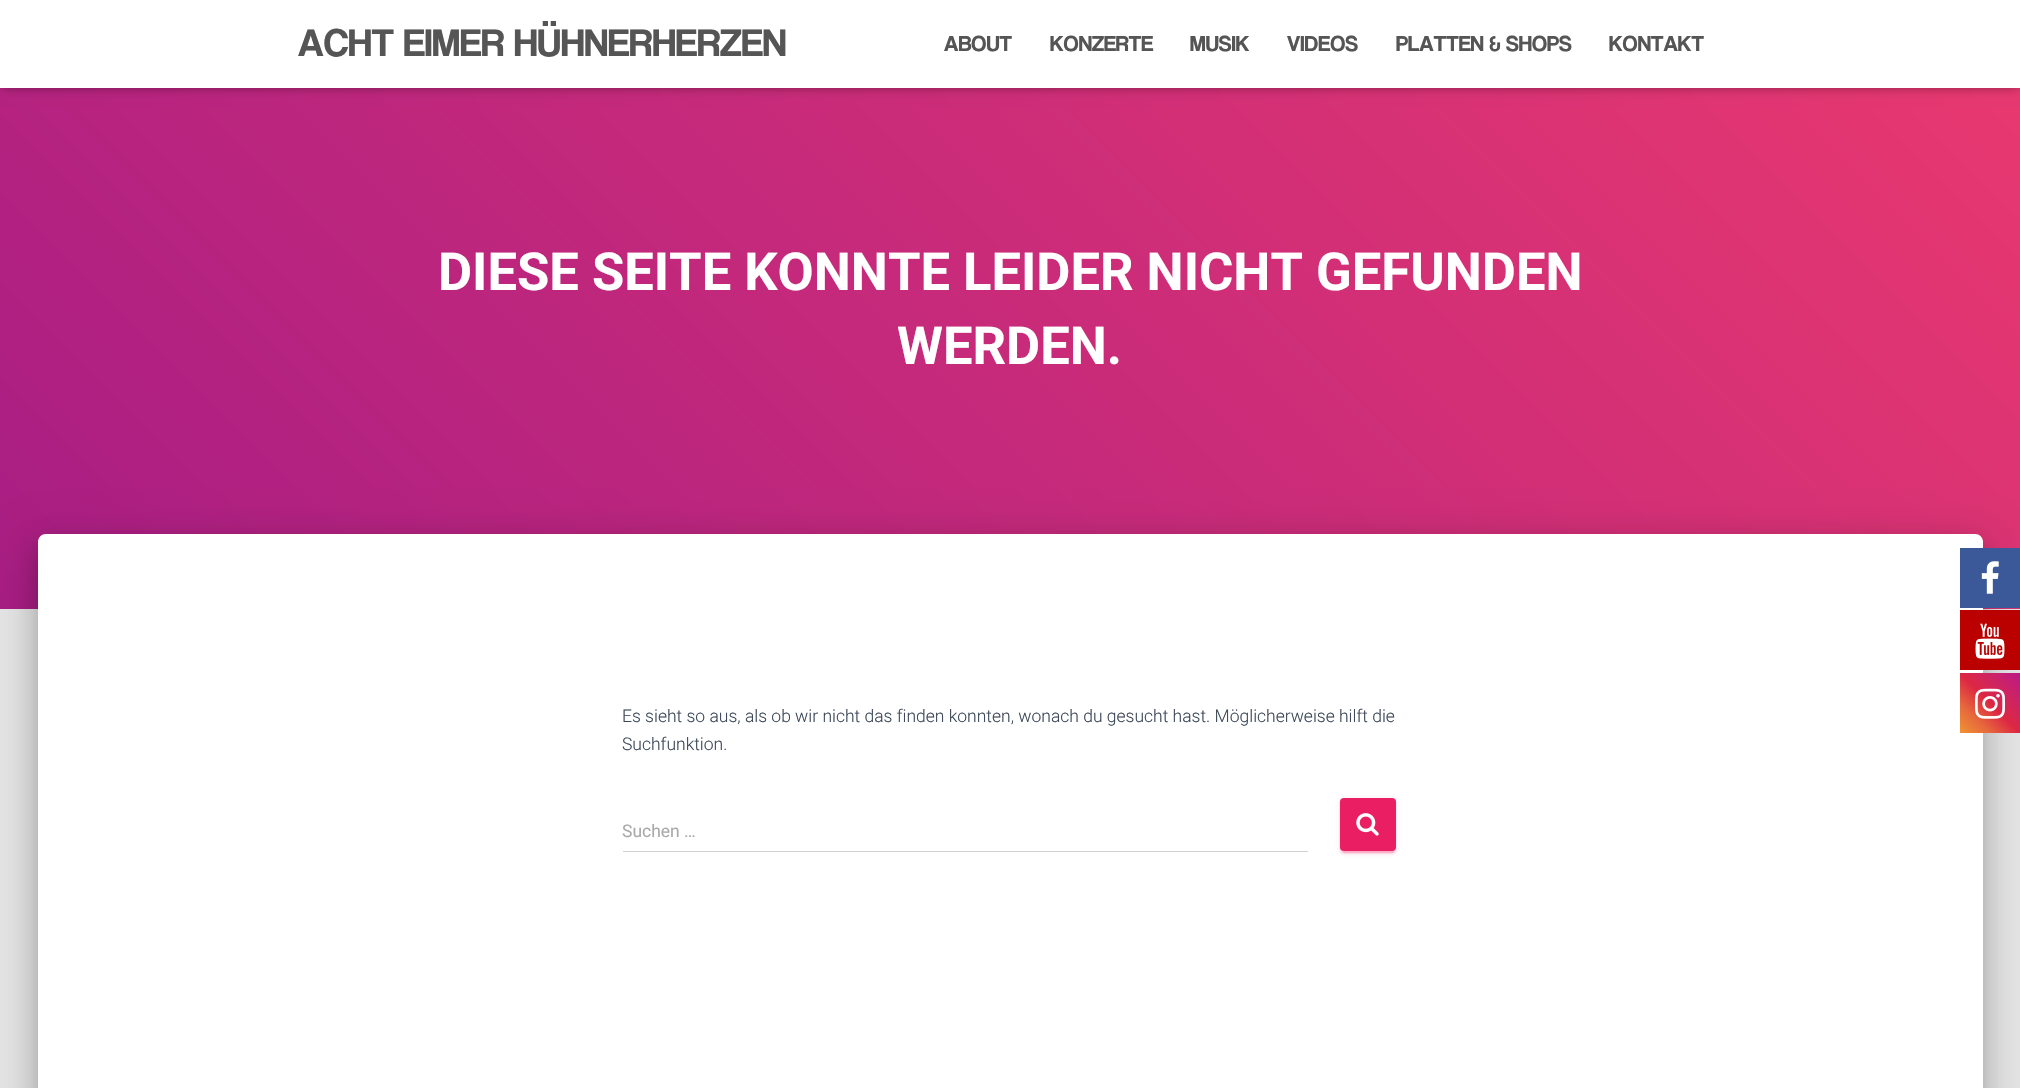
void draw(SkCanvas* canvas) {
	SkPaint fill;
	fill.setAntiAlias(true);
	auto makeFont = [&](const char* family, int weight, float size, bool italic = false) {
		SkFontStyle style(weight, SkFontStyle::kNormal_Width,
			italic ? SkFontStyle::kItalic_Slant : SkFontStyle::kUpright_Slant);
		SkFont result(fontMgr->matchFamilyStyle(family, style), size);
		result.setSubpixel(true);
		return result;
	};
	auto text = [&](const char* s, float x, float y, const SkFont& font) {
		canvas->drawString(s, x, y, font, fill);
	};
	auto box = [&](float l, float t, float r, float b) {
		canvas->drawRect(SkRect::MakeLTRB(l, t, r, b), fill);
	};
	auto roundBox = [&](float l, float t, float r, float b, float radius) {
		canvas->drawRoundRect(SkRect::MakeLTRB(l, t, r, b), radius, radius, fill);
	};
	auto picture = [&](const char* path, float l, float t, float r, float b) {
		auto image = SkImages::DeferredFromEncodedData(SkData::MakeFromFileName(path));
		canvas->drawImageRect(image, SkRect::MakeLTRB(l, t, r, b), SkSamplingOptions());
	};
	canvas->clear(0xFFE5E5E5);
	{
		const SkColor colors[] = {0xFFA81D84, 0xFFEA396F};
		const float stops[] = {0, 1};
		const SkPoint ends[] = {{353, 962}, {1668, -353}};
		fill.setShader(SkGradientShader::MakeLinear(ends, colors, stops, 2, SkTileMode::kClamp));
		fill.setAlpha(255);
	}
	box(0, 88, 2020, 609);
	fill.setShader(nullptr);
	fill.setColor(0x1A000000);
	fill.setMaskFilter(SkMaskFilter::MakeBlur(kNormal_SkBlurStyle, 3));
	canvas->drawRect(SkRect::MakeLTRB(3, 8, 2018, 90), fill);
	fill.setMaskFilter(nullptr);
	fill.setColor(0x1F000000);
	fill.setMaskFilter(SkMaskFilter::MakeBlur(kNormal_SkBlurStyle, 6));
	canvas->drawRect(SkRect::MakeLTRB(0, 1, 2020, 89), fill);
	fill.setMaskFilter(nullptr);
	fill.setColor(0x6B000000);
	fill.setMaskFilter(SkMaskFilter::MakeBlur(kNormal_SkBlurStyle, 6));
	canvas->drawRect(SkRect::MakeLTRB(8, 9, 2013, 81), fill);
	fill.setMaskFilter(nullptr);
	fill.setColor(0xFFFFFFFF);
	box(0, 0, 2020, 88);
	fill.setColor(0x33000000);
	fill.setMaskFilter(SkMaskFilter::MakeBlur(kNormal_SkBlurStyle, 6));
	canvas->drawRoundRect(SkRect::MakeLTRB(44, 550, 1976, 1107), 1, 1, fill);
	fill.setMaskFilter(nullptr);
	fill.setColor(0x1F000000);
	fill.setMaskFilter(SkMaskFilter::MakeBlur(kNormal_SkBlurStyle, 19));
	canvas->drawRoundRect(SkRect::MakeLTRB(31, 535, 1989, 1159), 14, 14, fill);
	fill.setMaskFilter(nullptr);
	fill.setColor(0x24000000);
	fill.setMaskFilter(SkMaskFilter::MakeBlur(kNormal_SkBlurStyle, 15));
	canvas->drawRoundRect(SkRect::MakeLTRB(35, 551, 1985, 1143), 10, 10, fill);
	fill.setMaskFilter(nullptr);
	fill.setColor(0xFFFFFFFF);
	canvas->drawPath(SkPathBuilder().moveTo(46, 534).lineTo(1975, 534).cubicTo(1979.5f, 534, 1983, 537.5f, 1983, 542).lineTo(1983, 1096).lineTo(38, 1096).lineTo(38, 542).cubicTo(38, 537.5f, 41.5f, 534, 46, 534).close().detach(), fill);
	fill.setColor(0xFF3B5998);
	box(1960, 548, 2020, 608);
	picture("image0.png", 1981, 561, 1999, 594);
	fill.setColor(0xFFBB0000);
	box(1960, 610, 2020, 670);
	picture("image1.png", 1975, 623, 2005, 659);
	{
		const SkColor colors[] = {0xFFF09433, 0xFFE6683C, 0xFFDC2743, 0xFFCC2366, 0xFFBC1888};
		const float stops[] = {0, 0.25f, 0.5f, 0.75f, 1};
		const SkPoint ends[] = {{1960, 733}, {2020, 673}};
		fill.setShader(SkGradientShader::MakeLinear(ends, colors, stops, 5, SkTileMode::kClamp));
		fill.setAlpha(255);
	}
	box(1960, 673, 2020, 733);
	picture("image2.png", 1975, 688, 2005, 719);
	fill.setShader(nullptr);
	fill.setColor(0xFFD2D2D2);
	box(623, 851, 1308, 852);
	fill.setColor(0x1FE91E63);
	fill.setMaskFilter(SkMaskFilter::MakeBlur(kNormal_SkBlurStyle, 3));
	canvas->drawRoundRect(SkRect::MakeLTRB(1340, 799, 1396, 853), 4, 4, fill);
	fill.setMaskFilter(nullptr);
	fill.setColor(0x33E91E63);
	fill.setMaskFilter(SkMaskFilter::MakeBlur(kNormal_SkBlurStyle, 0.5f));
	canvas->drawRoundRect(SkRect::MakeLTRB(1343, 804, 1394, 853), 1, 1, fill);
	fill.setMaskFilter(nullptr);
	fill.setColor(0x24E91E63);
	fill.setMaskFilter(SkMaskFilter::MakeBlur(kNormal_SkBlurStyle, 1));
	canvas->drawRoundRect(SkRect::MakeLTRB(1340, 800, 1396, 854), 4, 4, fill);
	fill.setMaskFilter(nullptr);
	fill.setColor(0xFFE91E63);
	roundBox(1340, 798, 1396, 851, 4);
	picture("image3.png", 1356, 813, 1379, 836);
	auto font1 = makeFont("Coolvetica", 400, 40);
	fill.setColor(0xFF555555);
	text("ACHT EIMER HÜHNERHERZEN", 298, 56, font1);
	auto font2 = makeFont("Coolvetica", 400, 22.5f);
	text("ABOUT", 944, 51, font2);
	text("KONZERTE", 1050, 51, font2);
	text("MUSIK", 1190, 51, font2);
	text("VIDEOS", 1287, 51, font2);
	text("PLATTEN & SHOPS", 1396, 51, font2);
	text("KONTAKT", 1609, 51, font2);
	auto font3 = makeFont("Roboto", 700, 52.5f);
	fill.setColor(0xFFFFFFFF);
	text("DIESE SEITE KONNTE LEIDER NICHT GEFUNDEN", 438, 290, font3);
	text("WERDEN.", 897, 364, font3);
	auto font4 = makeFont("Roboto", 300, 17.5f);
	fill.setColor(0xFF3C4858);
	text("Es sieht so aus, als ob wir nicht das finden konnten, wonach du gesucht hast. Möglicherweise hilft die", 622, 722, font4);
	text("Suchfunktion.", 622, 750, font4);
	auto font5 = makeFont("Roboto", 400, 17.5f);
	fill.setColor(0xFFAAAAAA);
	text("Suchen …", 622, 837, font5);
}
